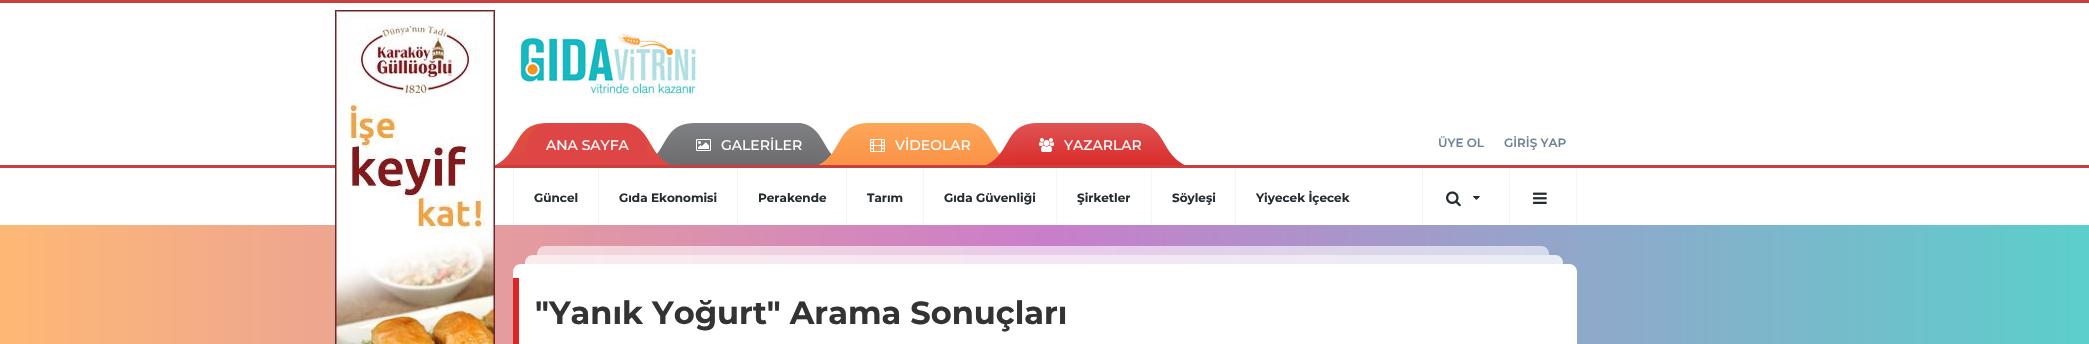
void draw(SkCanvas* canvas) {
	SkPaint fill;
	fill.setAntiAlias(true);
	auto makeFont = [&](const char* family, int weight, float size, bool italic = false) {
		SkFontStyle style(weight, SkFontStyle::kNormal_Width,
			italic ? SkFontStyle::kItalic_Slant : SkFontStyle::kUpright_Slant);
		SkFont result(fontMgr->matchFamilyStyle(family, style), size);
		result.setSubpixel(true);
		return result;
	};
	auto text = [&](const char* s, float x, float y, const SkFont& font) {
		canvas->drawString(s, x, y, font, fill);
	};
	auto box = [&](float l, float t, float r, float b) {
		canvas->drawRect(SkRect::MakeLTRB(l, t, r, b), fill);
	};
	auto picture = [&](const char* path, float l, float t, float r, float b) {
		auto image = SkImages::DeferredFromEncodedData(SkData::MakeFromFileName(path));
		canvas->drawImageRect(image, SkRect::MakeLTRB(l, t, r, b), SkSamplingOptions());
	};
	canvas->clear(0xFFFFFFFF);
	fill.setColor(0xFFC83F3E);
	box(0, 0, 2089, 3);
	picture("image0.png", 520, 34, 697, 98);
	picture("image1.png", 495, 123, 549, 165);
	picture("image3.png", 656, 123, 697, 165);
	picture("image2.png", 625, 123, 671, 165);
	fill.setColor(0xFFDE4645);
	canvas->drawPath(SkPathBuilder().moveTo(550, 123).lineTo(624, 123).cubicTo(636.5f, 123, 647, 133.5f, 647, 146).lineTo(647, 165).lineTo(527, 165).lineTo(527, 146).cubicTo(527, 133.5f, 537.5f, 123, 550, 123).close().detach(), fill);
	picture("image5.png", 799, 123, 832, 164);
	{
		const SkColor colors[] = {0xFF7F8083, 0xFF6C6C6F};
		const float stops[] = {0, 1};
		const SkPoint ends[] = {{748, 123}, {748, 165}};
		fill.setShader(SkGradientShader::MakeLinear(ends, colors, stops, 2, SkTileMode::kClamp));
		fill.setAlpha(255);
	}
	canvas->drawPath(SkPathBuilder().moveTo(698, 123).lineTo(798, 123).cubicTo(810.5f, 123, 821, 133.5f, 821, 146).lineTo(821, 165).lineTo(675, 165).lineTo(675, 146).cubicTo(675, 133.5f, 685.5f, 123, 698, 123).close().detach(), fill);
	picture("image4.png", 696, 139, 711, 151);
	picture("image6.png", 818, 123, 871, 165);
	picture("image8.png", 968, 123, 1000, 163);
	{
		const SkColor colors[] = {0xFFFCA658, 0xFFFB9246};
		const float stops[] = {0, 1};
		const SkPoint ends[] = {{920, 123}, {920, 165}};
		fill.setShader(SkGradientShader::MakeLinear(ends, colors, stops, 2, SkTileMode::kClamp));
		fill.setAlpha(255);
	}
	canvas->drawPath(SkPathBuilder().moveTo(872, 123).lineTo(967, 123).cubicTo(979.5f, 123, 990, 133.5f, 990, 146).lineTo(990, 165).lineTo(849, 165).lineTo(849, 146).cubicTo(849, 133.5f, 859.5f, 123, 872, 123).close().detach(), fill);
	picture("image7.png", 870, 139, 885, 152);
	picture("image9.png", 986, 123, 1040, 165);
	picture("image11.png", 1139, 123, 1185, 165);
	{
		const SkColor colors[] = {0xFFE05454, 0xFFD92C2B};
		const float stops[] = {0, 1};
		const SkPoint ends[] = {{1090, 123}, {1090, 165}};
		fill.setShader(SkGradientShader::MakeLinear(ends, colors, stops, 2, SkTileMode::kClamp));
		fill.setAlpha(255);
	}
	canvas->drawPath(SkPathBuilder().moveTo(1041, 123).lineTo(1138, 123).cubicTo(1150.5f, 123, 1161, 133.5f, 1161, 146).lineTo(1161, 165).lineTo(1018, 165).lineTo(1018, 146).cubicTo(1018, 133.5f, 1028.5f, 123, 1041, 123).close().detach(), fill);
	picture("image10.png", 1039, 138, 1054, 152);
	fill.setShader(nullptr);
	fill.setColor(0xFFC83F3E);
	box(0, 165, 2089, 168);
	fill.setColor(0xFFF5F5F5);
	box(1576, 168, 1577, 225);
	box(513, 168, 514, 225);
	box(598, 168, 599, 225);
	box(737, 168, 738, 225);
	box(846, 168, 847, 225);
	box(923, 168, 924, 225);
	box(1056, 168, 1057, 225);
	box(1151, 168, 1152, 225);
	box(1235, 168, 1236, 225);
	box(1422, 168, 1423, 225);
	picture("image12.png", 1446, 191, 1461, 207);
	picture("image13.png", 1473, 196, 1480, 200);
	box(1509, 168, 1510, 225);
	picture("image14.png", 1533, 192, 1547, 204);
	{
		const SkColor colors[] = {0xFFFEB875, 0xFFC97ECA, 0xFF5BCFCB};
		const float stops[] = {0, 0.5f, 1};
		const SkPoint ends[] = {{0, 235}, {2089, 235}};
		fill.setShader(SkGradientShader::MakeLinear(ends, colors, stops, 3, SkTileMode::kClamp));
		fill.setAlpha(255);
	}
	box(0, 225, 2089, 235);
	{
		const SkColor colors[] = {0xFFFEB875, 0xFFC97ECA, 0xFF5BCFCB};
		const float stops[] = {0, 0.5f, 1};
		const SkPoint ends[] = {{0, 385}, {2089, 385}};
		fill.setShader(SkGradientShader::MakeLinear(ends, colors, stops, 3, SkTileMode::kClamp));
		fill.setAlpha(255);
	}
	box(0, 235, 2089, 344);
	picture("image15.png", 335, 10, 495, 344);
	fill.setShader(nullptr);
	fill.setColor(0xFFFFFFFF);
	canvas->drawPath(SkPathBuilder().moveTo(521, 264).lineTo(1569, 264).cubicTo(1573.5f, 264, 1577, 267.5f, 1577, 272).lineTo(1577, 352).lineTo(513, 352).lineTo(513, 272).cubicTo(513, 267.5f, 516.5f, 264, 521, 264).close().detach(), fill);
	fill.setColor(0x99FFFFFF);
	canvas->drawPath(SkPathBuilder().moveTo(545, 246).lineTo(1541, 246).cubicTo(1545.5f, 246, 1549, 249.5f, 1549, 254).lineTo(1549, 255).lineTo(537, 255).lineTo(537, 254).cubicTo(537, 249.5f, 540.5f, 246, 545, 246).close().detach(), fill);
	fill.setColor(0xCCFFFFFF);
	canvas->drawPath(SkPathBuilder().moveTo(533, 255).lineTo(1555, 255).cubicTo(1559.5f, 255, 1563, 258.5f, 1563, 263).lineTo(1563, 264).lineTo(525, 264).lineTo(525, 263).cubicTo(525, 258.5f, 528.5f, 255, 533, 255).close().detach(), fill);
	fill.setColor(0xFFD82726);
	box(513, 278, 519, 344);
	auto font1 = makeFont("Montserrat", 500, 14);
	fill.setColor(0xFFFFFFFF);
	text("ANA SAYFA", 546, 150, font1);
	text("GALERİLER", 721, 150, font1);
	text("VİDEOLAR", 895, 150, font1);
	text("YAZARLAR", 1064, 150, font1);
	auto font2 = makeFont("Montserrat", 600, 12);
	fill.setColor(0xFF6E8398);
	text("ÜYE OL", 1438, 147, font2);
	text("GİRİŞ YAP", 1504, 147, font2);
	auto font3 = makeFont("Montserrat", 700, 12);
	fill.setColor(0xFF252D31);
	text("Güncel", 534, 202, font3);
	text("Gıda Ekonomisi", 619, 202, font3);
	text("Perakende", 758, 202, font3);
	text("Tarım", 867, 202, font3);
	text("Gıda Güvenliği", 944, 202, font3);
	text("Şirketler", 1077, 202, font3);
	text("Söyleşi", 1172, 202, font3);
	text("Yiyecek İçecek", 1256, 202, font3);
	auto font4 = makeFont("Montserrat", 700, 32);
	fill.setColor(0xFF333333);
	text("\"Yanık Yoğurt\" Arama Sonuçları", 535, 324, font4);
}
